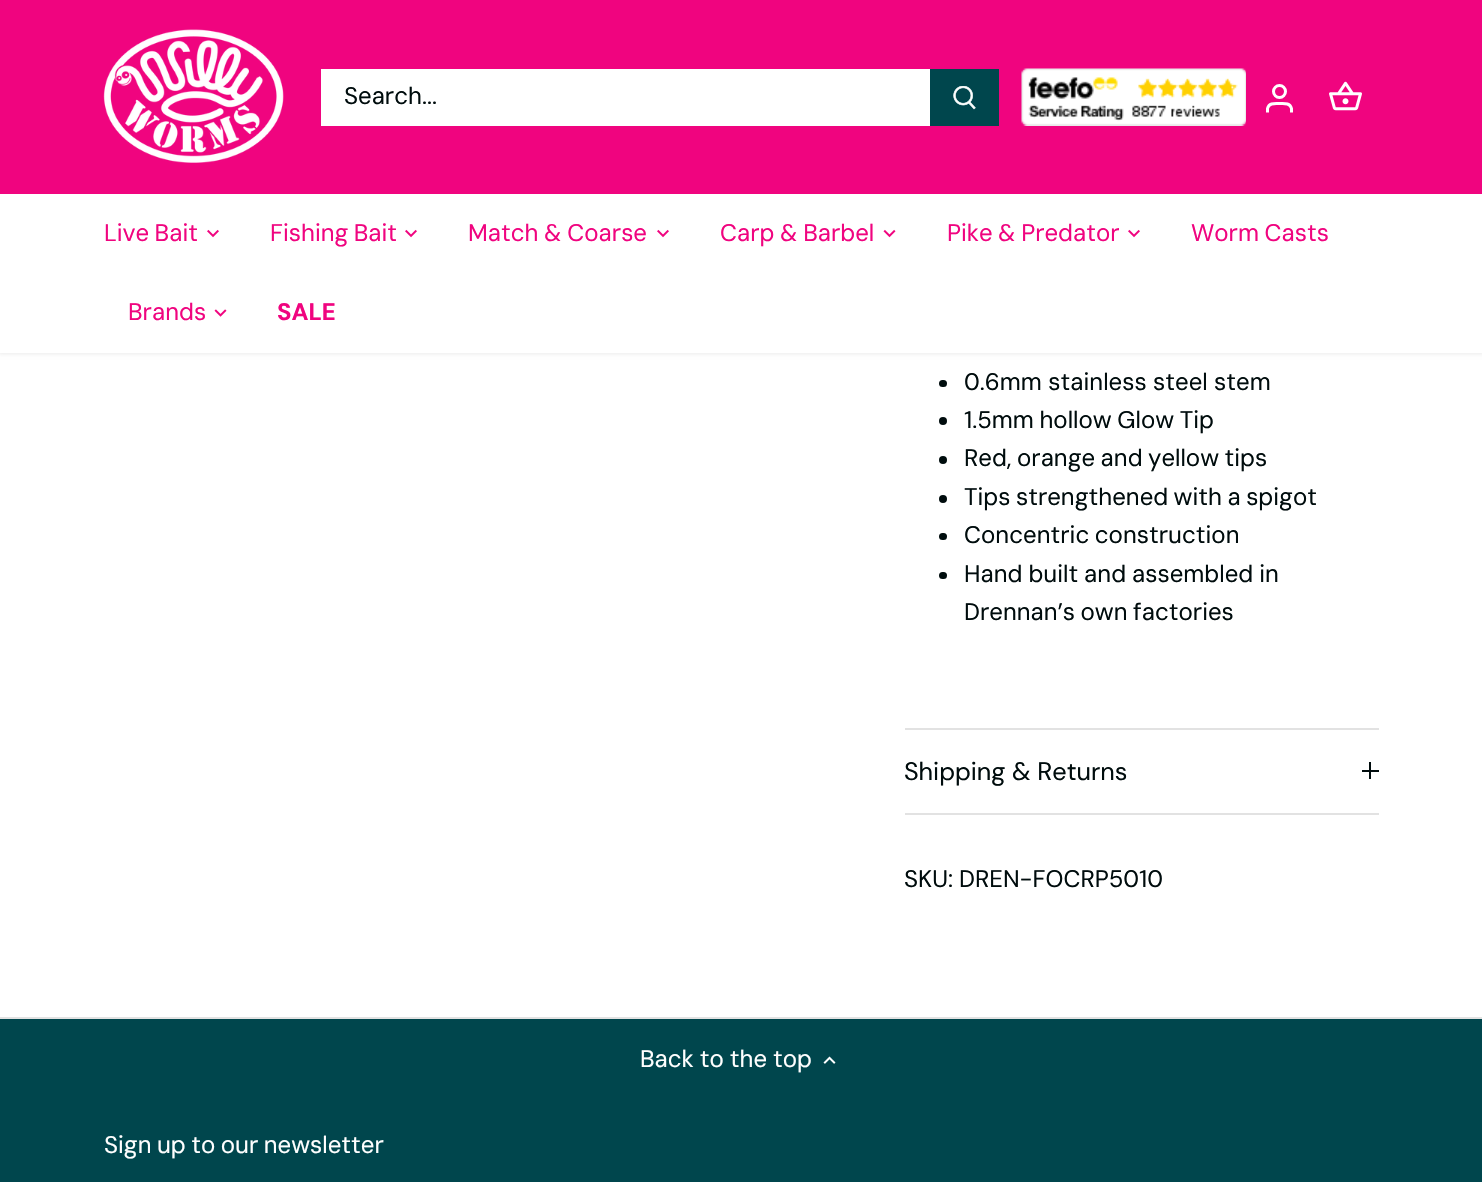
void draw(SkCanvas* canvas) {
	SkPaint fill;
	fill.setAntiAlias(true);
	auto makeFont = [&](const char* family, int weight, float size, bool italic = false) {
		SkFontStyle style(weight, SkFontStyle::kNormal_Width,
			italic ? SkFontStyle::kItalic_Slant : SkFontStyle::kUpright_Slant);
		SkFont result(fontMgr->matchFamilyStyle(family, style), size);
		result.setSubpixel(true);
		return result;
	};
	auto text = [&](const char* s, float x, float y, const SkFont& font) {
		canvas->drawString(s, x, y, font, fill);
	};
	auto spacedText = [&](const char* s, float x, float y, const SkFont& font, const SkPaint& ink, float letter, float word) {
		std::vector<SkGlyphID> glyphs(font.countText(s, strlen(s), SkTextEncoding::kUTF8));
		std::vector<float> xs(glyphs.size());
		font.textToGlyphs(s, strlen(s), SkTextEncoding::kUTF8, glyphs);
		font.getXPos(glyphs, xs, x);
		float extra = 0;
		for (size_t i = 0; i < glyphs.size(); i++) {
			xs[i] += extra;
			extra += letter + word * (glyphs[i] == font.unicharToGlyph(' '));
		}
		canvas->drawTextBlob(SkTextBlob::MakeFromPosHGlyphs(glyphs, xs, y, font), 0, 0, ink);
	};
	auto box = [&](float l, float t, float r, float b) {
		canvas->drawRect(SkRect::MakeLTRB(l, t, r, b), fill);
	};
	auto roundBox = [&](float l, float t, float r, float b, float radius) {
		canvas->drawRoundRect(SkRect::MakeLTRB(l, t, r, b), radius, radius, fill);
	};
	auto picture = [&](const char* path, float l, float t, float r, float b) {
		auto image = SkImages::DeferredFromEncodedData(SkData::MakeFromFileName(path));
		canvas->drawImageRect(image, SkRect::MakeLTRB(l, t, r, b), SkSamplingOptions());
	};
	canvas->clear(0xFF00464D);
	fill.setColor(0xFFFFFFFF);
	box(0, 353, 1482, 1017);
	fill.setColor(0x14000000);
	fill.setMaskFilter(SkMaskFilter::MakeBlur(kNormal_SkBlurStyle, 2));
	canvas->drawRect(SkRect::MakeLTRB(-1, -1, 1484, 354), fill);
	fill.setMaskFilter(nullptr);
	fill.setColor(0xFFFFFFFF);
	box(0, 194, 1482, 353);
	fill.setColor(0xFFF0047F);
	box(0, 0, 1482, 194);
	picture("image0.png", 103, 29, 284, 163);
	fill.setColor(0xFFFFFFFF);
	box(321, 69, 930, 126);
	fill.setColor(0xFF00464D);
	box(930, 69, 999, 126);
	picture("image1.png", 953, 86, 976, 110);
	picture("image2.png", 1021, 68, 1246, 126);
	fill.setStyle(SkPaint::kStroke_Style);
	fill.setStrokeWidth(3);
	fill.setColor(0xFFFFFFFF);
	canvas->drawCircle(1279.5f, 91.5f, 6, fill);
	canvas->drawPath(SkPathBuilder().moveTo(1291.5f, 112.5f).lineTo(1291.5f, 108.5f).cubicTo(1290, 102.5f, 1284, 103.5f, 1279.5f, 103.5f).cubicTo(1275, 103.5f, 1269, 102.5f, 1267.5f, 108.5f).lineTo(1267.5f, 112.5f).detach(), fill);
	picture("image3.png", 1329, 81, 1362, 111);
	picture("image4.png", 207, 229, 219, 238);
	picture("image4.png", 405, 229, 417, 238);
	picture("image4.png", 657, 229, 669, 238);
	picture("image5.png", 883, 229, 896, 238);
	picture("image4.png", 1128, 229, 1140, 238);
	picture("image6.png", 214, 309, 227, 317);
	fill.setStyle(SkPaint::kFill_Style);
	fill.setColor(0xFF000C0D);
	roundBox(939, 380, 947, 387, 3.5f);
	canvas->drawCircle(943, 421, 4, fill);
	canvas->drawCircle(943, 460, 4, fill);
	canvas->drawCircle(943, 499, 4, fill);
	roundBox(939, 533, 947, 540, 3.5f);
	roundBox(939, 572, 947, 579, 3.5f);
	fill.setColor(0xFFE2E2E2);
	box(905, 728, 1379, 730);
	box(905, 813, 1379, 815);
	fill.setColor(0xFF000C0D);
	box(1369, 762, 1371, 779);
	box(1362, 770, 1379, 772);
	fill.setColor(0xFFE2E2E2);
	box(0, 1017, 1482, 1019);
	picture("image7.png", 823, 1056, 836, 1064);
	auto font1 = makeFont("DM Sans", 400, 24);
	fill.setColor(0xFF000C0D);
	text("Search...", 344, 104, font1);
	fill.setColor(0xFFF0047F);
	spacedText("Live Bait", 104, 241, font1, fill, 0, -1);
	spacedText("Fishing Bait", 270, 241, font1, fill, 0, -1);
	spacedText("Match & Coarse", 468, 241, font1, fill, 0, -1);
	spacedText("Carp & Barbel", 720, 241, font1, fill, 0, -1);
	spacedText("Pike & Predator", 947, 241, font1, fill, 0, -1);
	spacedText("Worm Casts", 1191, 241, font1, fill, 0, -1);
	text("Brands", 128, 320, font1);
	auto font2 = makeFont("DM Sans", 700, 24);
	text("SALE", 277, 320, font2);
	fill.setColor(0xFF000C0D);
	text("0.6mm stainless steel stem", 964, 390, font1);
	spacedText("1.5mm hollow Glow Tip", 964, 428, font1, fill, 0, -1);
	spacedText("Red, orange and yellow tips", 964, 466, font1, fill, 0, -1);
	spacedText("Tips strengthened with a spigot", 964, 505, font1, fill, 0, -1);
	spacedText("Concentric construction", 964, 543, font1, fill, 0, -1);
	spacedText("Hand built and assembled in", 964, 582, font1, fill, 0, -0.5f);
	spacedText("Drennan’s own factories", 964, 620, font1, fill, 0, -1);
	auto font3 = makeFont("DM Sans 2", 400, 25.25f);
	text("Shipping & Returns", 904, 780, font3);
	text("SKU:", 904, 887, font1);
	text("DREN-FOCRP5010", 959, 887, font1);
	fill.setColor(0xFFFFFFFF);
	spacedText("Back to the top", 640, 1067, font1, fill, 0, -0.5f);
	spacedText("Sign up to our newsletter", 104, 1153, font1, fill, 0, -1);
}
